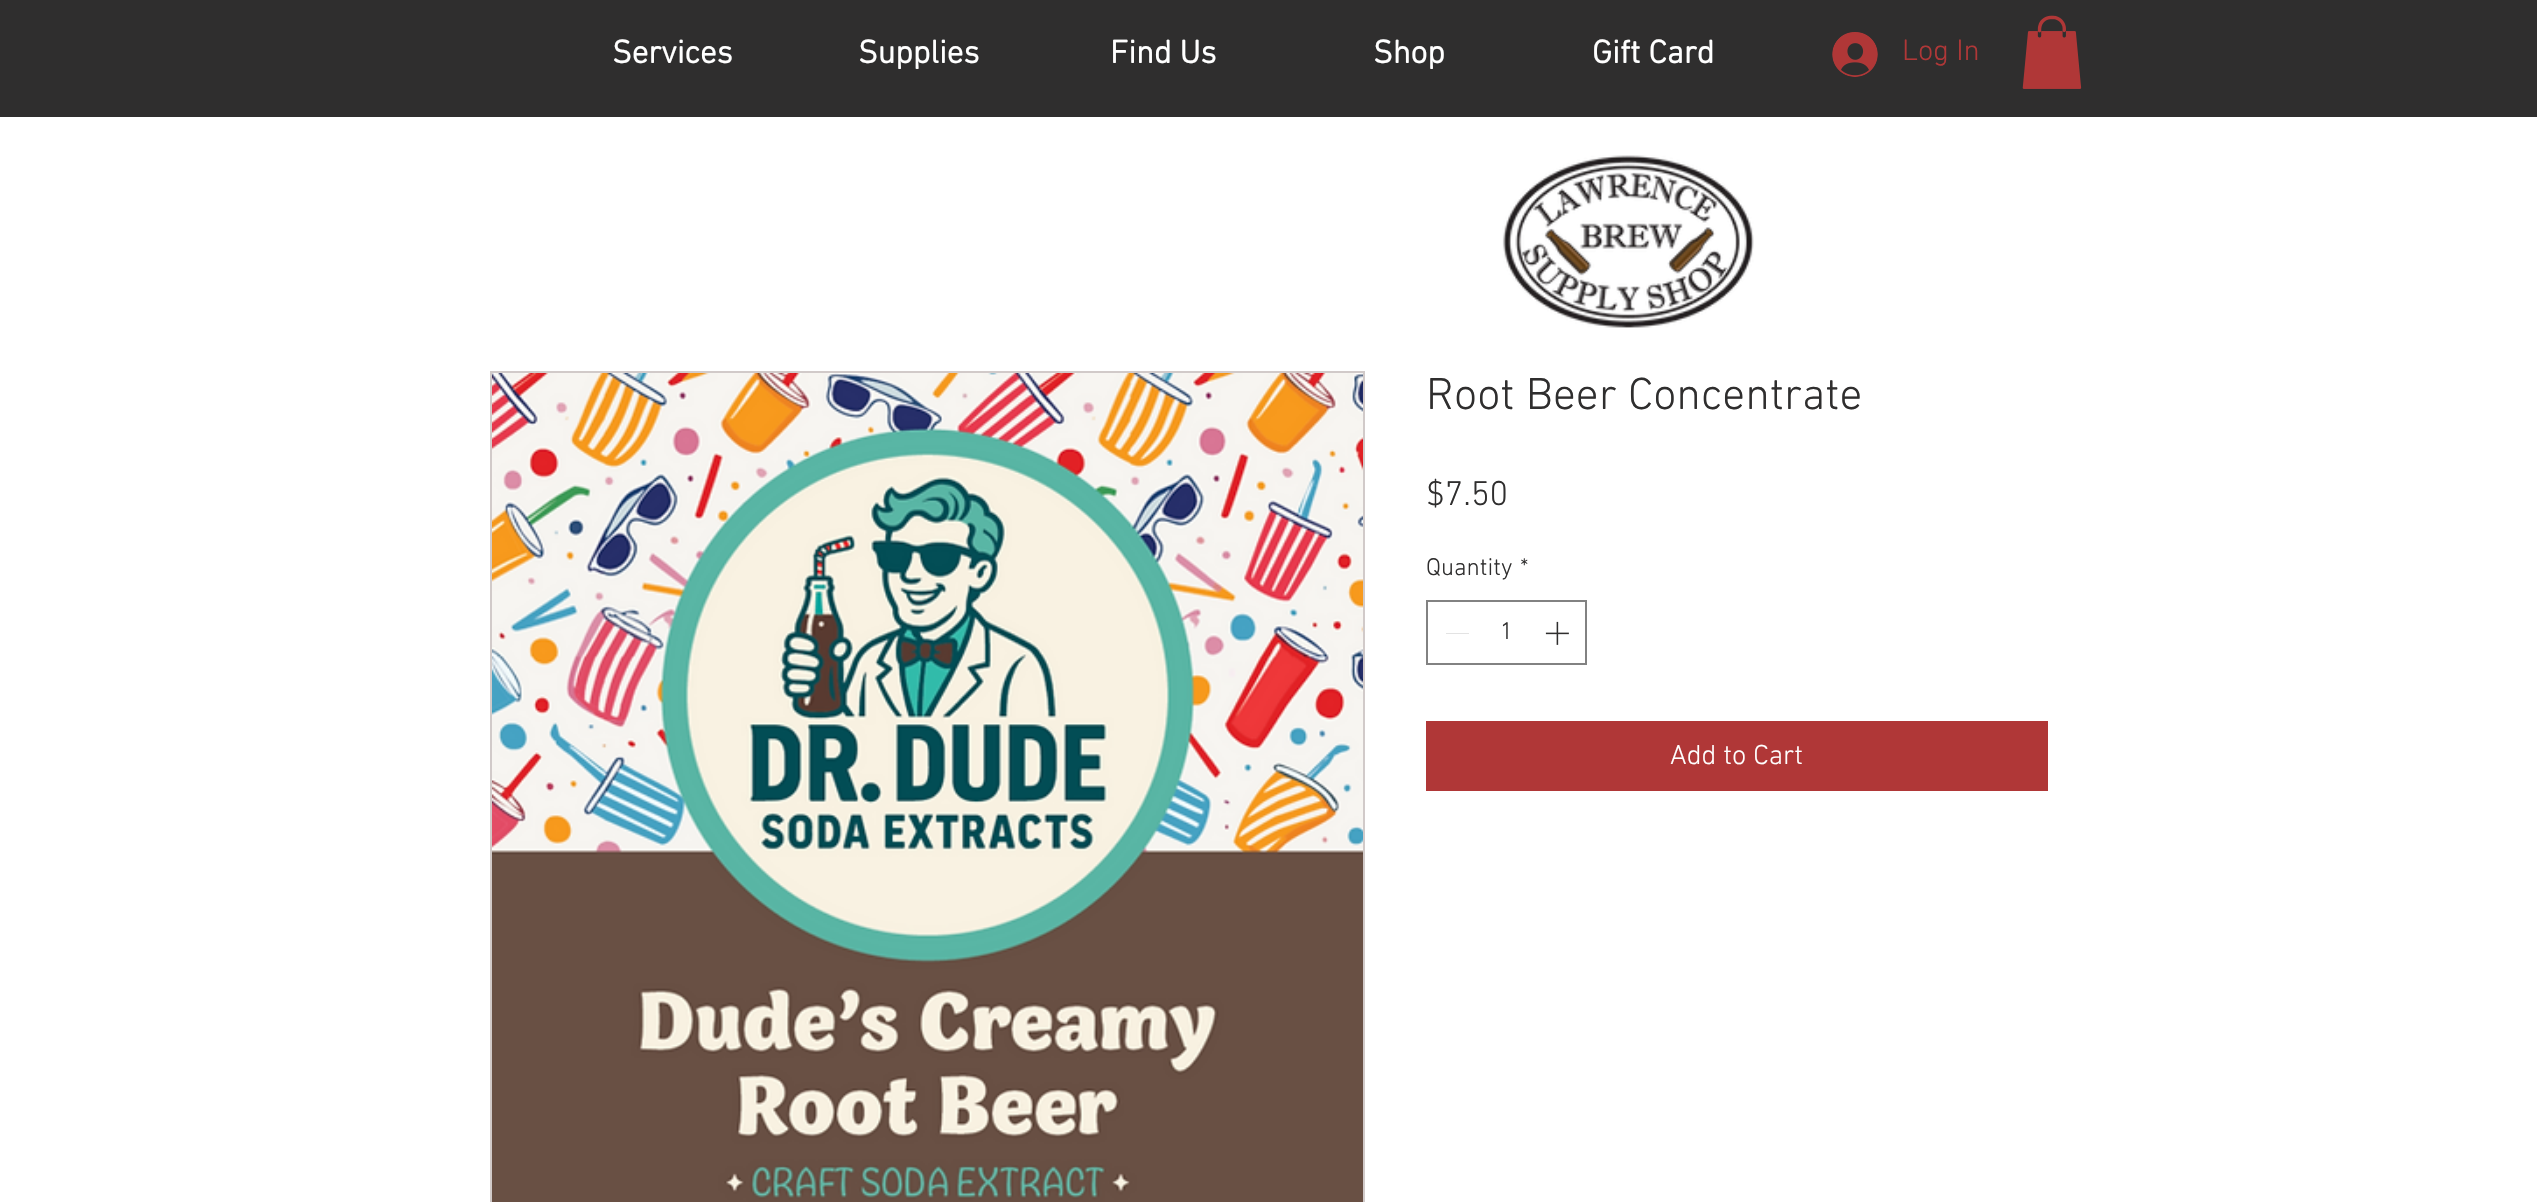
void draw(SkCanvas* canvas) {
	SkPaint fill;
	fill.setAntiAlias(true);
	auto makeFont = [&](const char* family, int weight, float size, bool italic = false) {
		SkFontStyle style(weight, SkFontStyle::kNormal_Width,
			italic ? SkFontStyle::kItalic_Slant : SkFontStyle::kUpright_Slant);
		SkFont result(fontMgr->matchFamilyStyle(family, style), size);
		result.setSubpixel(true);
		return result;
	};
	auto text = [&](const char* s, float x, float y, const SkFont& font) {
		canvas->drawString(s, x, y, font, fill);
	};
	auto box = [&](float l, float t, float r, float b) {
		canvas->drawRect(SkRect::MakeLTRB(l, t, r, b), fill);
	};
	auto picture = [&](const char* path, float l, float t, float r, float b) {
		auto image = SkImages::DeferredFromEncodedData(SkData::MakeFromFileName(path));
		canvas->drawImageRect(image, SkRect::MakeLTRB(l, t, r, b), SkSamplingOptions());
	};
	canvas->clear(0xFFFFFFFF);
	fill.setColor(0xFF2F2E2E);
	box(0, 0, 2537, 117);
	picture("image0.png", 1832, 32, 1878, 77);
	picture("image1.png", 2022, 15, 2082, 89);
	picture("image2.png", 1502, 155, 1754, 328);
	fill.setStyle(SkPaint::kStroke_Style);
	fill.setStrokeWidth(2);
	fill.setColor(0xFFD1CAC9);
	canvas->drawRect(SkRect::MakeLTRB(491, 372, 1364, 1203), fill);
	picture("image3.png", 492, 373, 1363, 1202);
	fill.setColor(0xFF828282);
	canvas->drawRect(SkRect::MakeLTRB(1427, 601, 1586, 664), fill);
	fill.setStyle(SkPaint::kFill_Style);
	fill.setColor(0xFFE3E3E3);
	box(1446, 633, 1469, 634);
	picture("image4.png", 1545, 621, 1569, 645);
	fill.setColor(0xFFB03737);
	box(1426, 721, 2048, 791);
	auto font1 = makeFont("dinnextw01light", 700, 33);
	fill.setColor(0xFFFFFFFF);
	text("Services", 612, 63, font1);
	text("Supplies", 858, 63, font1);
	text("Find Us", 1110, 63, font1);
	text("Shop", 1373, 63, font1);
	text("Gift Card", 1592, 63, font1);
	auto font2 = makeFont("dinnextw01light", 300, 30);
	fill.setColor(0xFFB03737);
	text("Log In", 1902, 60, font2);
	auto font3 = makeFont("dinnextw01light", 300, 45.5f);
	fill.setColor(0xFF2F2E2E);
	text("Root Beer Concentrate", 1426, 409, font3);
	auto font4 = makeFont("dinnextw01light", 300, 35);
	text("$7.50", 1426, 505, font4);
	auto font5 = makeFont("dinnextw01light", 300, 24.5f);
	text("Quantity", 1426, 575, font5);
	text("*", 1520, 575, font5);
	text("1", 1500, 639, font5);
	auto font6 = makeFont("dinnextw01light", 300, 28);
	fill.setColor(0xFFFFFFFF);
	text("Add to Cart", 1670, 764, font6);
}
